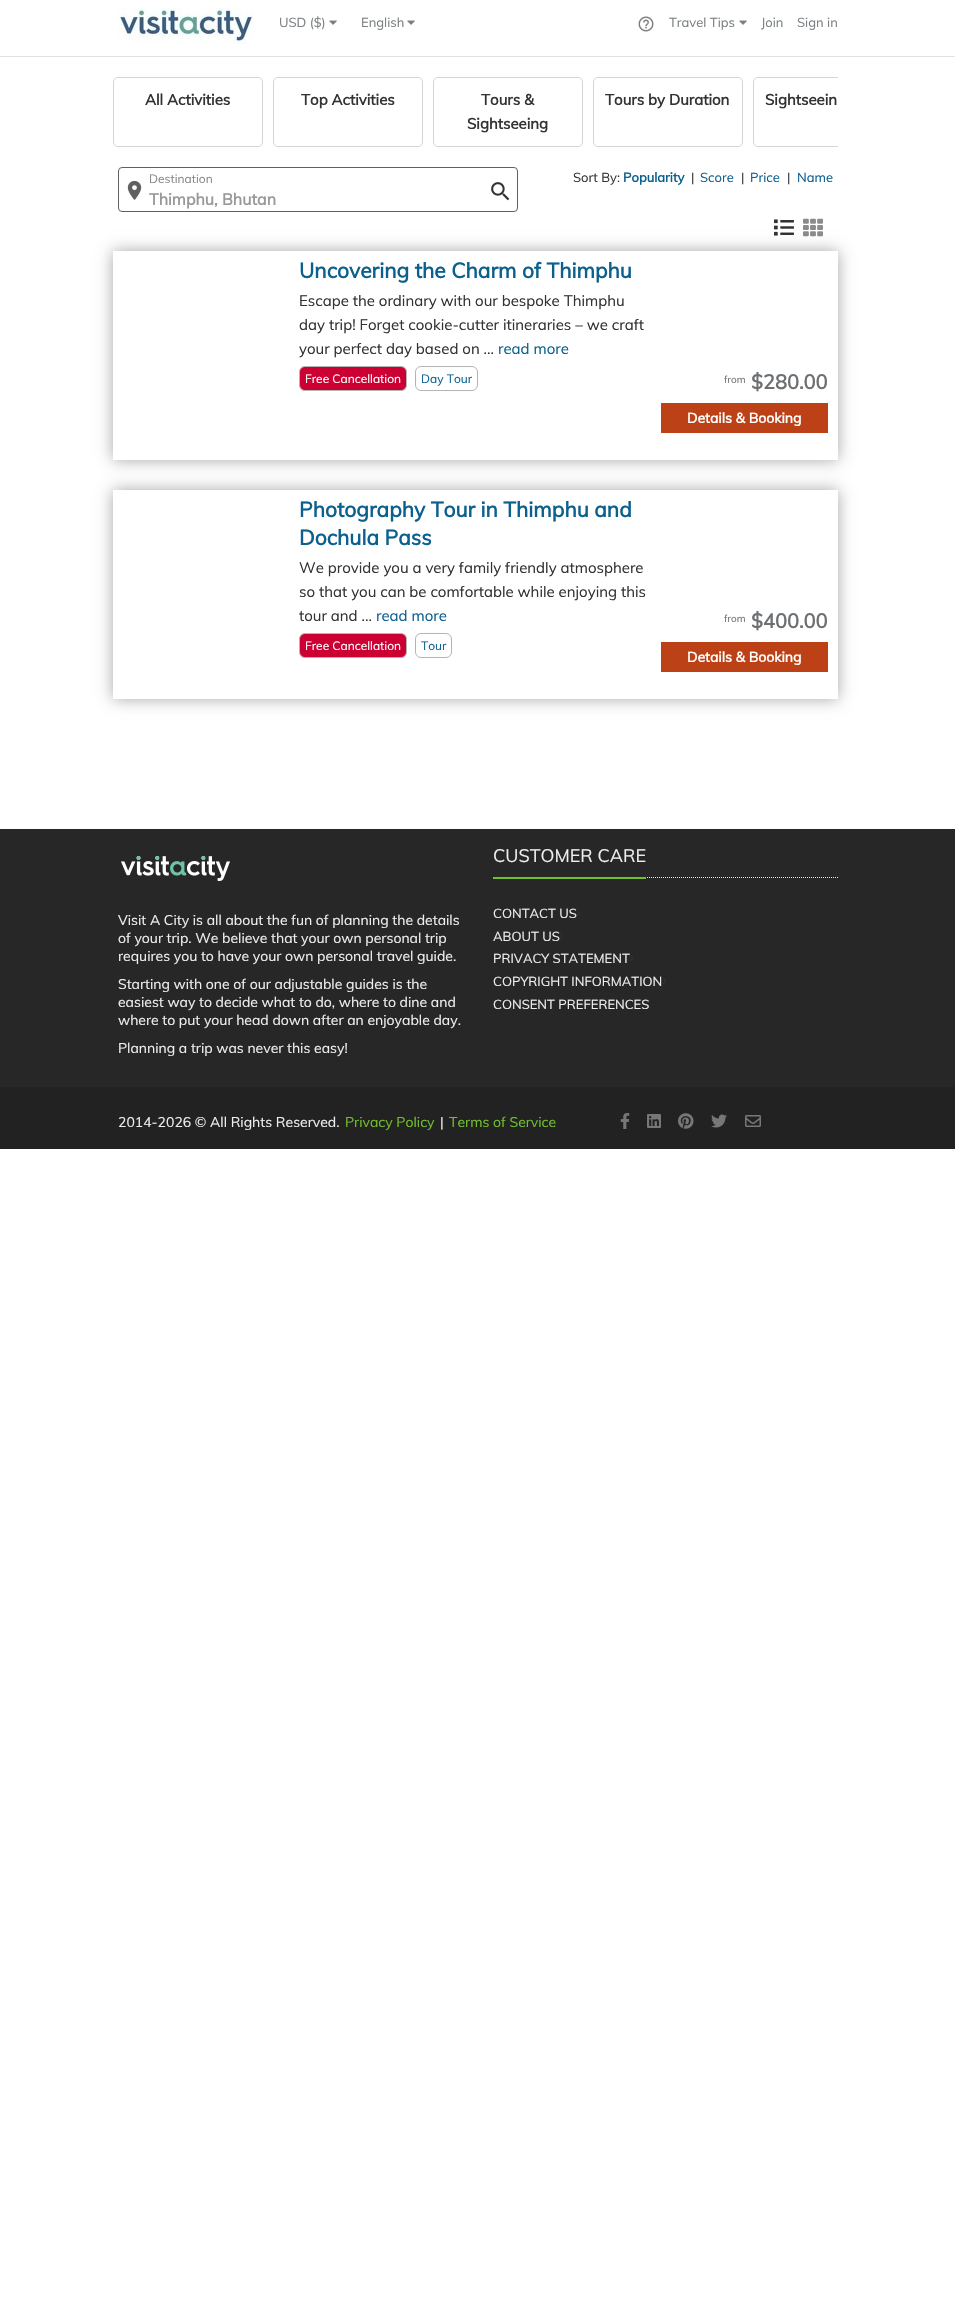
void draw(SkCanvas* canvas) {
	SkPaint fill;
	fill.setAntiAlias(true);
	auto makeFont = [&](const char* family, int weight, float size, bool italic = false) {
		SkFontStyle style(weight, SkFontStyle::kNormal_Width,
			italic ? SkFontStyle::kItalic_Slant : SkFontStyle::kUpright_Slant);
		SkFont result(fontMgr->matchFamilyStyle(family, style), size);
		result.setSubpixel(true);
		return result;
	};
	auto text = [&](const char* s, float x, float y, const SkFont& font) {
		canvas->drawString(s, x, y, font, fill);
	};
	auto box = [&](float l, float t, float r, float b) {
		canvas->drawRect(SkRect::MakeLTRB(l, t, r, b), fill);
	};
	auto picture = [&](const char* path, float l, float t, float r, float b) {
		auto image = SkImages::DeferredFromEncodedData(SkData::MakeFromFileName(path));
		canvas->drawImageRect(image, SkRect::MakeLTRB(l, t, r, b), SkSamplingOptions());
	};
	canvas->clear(0xFFFFFFFF);
	picture("image0.png", 118, 8, 254, 44);
	picture("image1.png", 329, 20, 337, 25);
	picture("image1.png", 407, 20, 415, 25);
	picture("image2.png", 638, 16, 654, 32);
	picture("image1.png", 739, 20, 747, 25);
	fill.setColor(0xFFE0E1E5);
	box(0, 56, 955, 57);
	fill.setStyle(SkPaint::kStroke_Style);
	fill.setStrokeWidth(1);
	fill.setColor(0xFFD7D4D2);
	canvas->drawRoundRect(SkRect::MakeLTRB(113.5f, 77.5f, 262.5f, 146.5f), 4.5f, 4.5f, fill);
	canvas->drawRoundRect(SkRect::MakeLTRB(273.5f, 77.5f, 422.5f, 146.5f), 4.5f, 4.5f, fill);
	canvas->drawRoundRect(SkRect::MakeLTRB(433.5f, 77.5f, 582.5f, 146.5f), 4.5f, 4.5f, fill);
	canvas->drawRoundRect(SkRect::MakeLTRB(593.5f, 77.5f, 742.5f, 146.5f), 4.5f, 4.5f, fill);
	canvas->save();
	canvas->clipRect(SkRect::MakeLTRB(103, 57, 838, 147));
	canvas->drawRoundRect(SkRect::MakeLTRB(753.5f, 77.5f, 902.5f, 146.5f), 4.5f, 4.5f, fill);
	canvas->restore();
	fill.setColor(0xFF606060);
	canvas->drawRoundRect(SkRect::MakeLTRB(118.5f, 167.5f, 517.5f, 211.5f), 3.5f, 3.5f, fill);
	picture("image3.png", 127, 180, 142, 200);
	picture("image4.png", 491, 182, 510, 201);
	picture("image5.png", 774, 219, 794, 236);
	picture("image6.png", 803, 218, 823, 237);
	canvas->save();
	canvas->clipPath(SkPathBuilder(SkPathFillType::kEvenOdd).moveTo(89, 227).lineTo(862, 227).lineTo(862, 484).lineTo(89, 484).close().moveTo(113, 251).lineTo(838, 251).lineTo(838, 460).lineTo(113, 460).close().detach(), true);
	fill.setStyle(SkPaint::kFill_Style);
	fill.setColor(0x59000000);
	fill.setMaskFilter(SkMaskFilter::MakeBlur(kNormal_SkBlurStyle, 7.5f));
	canvas->drawRect(SkRect::MakeLTRB(113, 251, 838, 460), fill);
	fill.setMaskFilter(nullptr);
	canvas->restore();
	fill.setColor(0xFFCC0033);
	canvas->drawRoundRect(SkRect::MakeLTRB(299.5f, 366.5f, 406.5f, 390.5f), 5.5f, 5.5f, fill);
	fill.setStyle(SkPaint::kStroke_Style);
	fill.setColor(0xFFB4B4B4);
	canvas->drawRoundRect(SkRect::MakeLTRB(299.5f, 366.5f, 406.5f, 390.5f), 5.5f, 5.5f, fill);
	canvas->drawRoundRect(SkRect::MakeLTRB(415.5f, 366.5f, 477.5f, 390.5f), 5.5f, 5.5f, fill);
	fill.setStyle(SkPaint::kFill_Style);
	fill.setColor(0xFFBD4116);
	box(661, 403, 828, 433);
	canvas->save();
	canvas->clipPath(SkPathBuilder(SkPathFillType::kEvenOdd).moveTo(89, 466).lineTo(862, 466).lineTo(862, 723).lineTo(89, 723).close().moveTo(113, 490).lineTo(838, 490).lineTo(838, 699).lineTo(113, 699).close().detach(), true);
	fill.setColor(0x59000000);
	fill.setMaskFilter(SkMaskFilter::MakeBlur(kNormal_SkBlurStyle, 7.5f));
	canvas->drawRect(SkRect::MakeLTRB(113, 490, 838, 699), fill);
	fill.setMaskFilter(nullptr);
	canvas->restore();
	fill.setColor(0xFFCC0033);
	canvas->drawRoundRect(SkRect::MakeLTRB(299.5f, 633.5f, 406.5f, 657.5f), 5.5f, 5.5f, fill);
	fill.setStyle(SkPaint::kStroke_Style);
	fill.setColor(0xFFB4B4B4);
	canvas->drawRoundRect(SkRect::MakeLTRB(299.5f, 633.5f, 406.5f, 657.5f), 5.5f, 5.5f, fill);
	canvas->drawRoundRect(SkRect::MakeLTRB(415.5f, 633.5f, 451.5f, 657.5f), 5.5f, 5.5f, fill);
	fill.setStyle(SkPaint::kFill_Style);
	fill.setColor(0xFFBD4116);
	box(661, 642, 828, 672);
	fill.setColor(0xFF272727);
	box(0, 829, 955, 1087);
	picture("image7.png", 121, 856, 230, 881);
	fill.setStyle(SkPaint::kStroke_Style);
	fill.setColor(0xFFE4E9F0);
	fill.setPathEffect(SkDashPathEffect::Make({{1, 1}}, 0));
	canvas->drawPath(SkPathBuilder().moveTo(493, 877.5f).lineTo(838, 877.5f).detach(), fill);
	fill.setPathEffect(nullptr);
	fill.setStyle(SkPaint::kFill_Style);
	fill.setColor(0xFF72C02C);
	box(493, 877, 646, 879);
	picture("image8.png", 577, 910, 580, 916);
	picture("image8.png", 560, 933, 563, 939);
	picture("image8.png", 630, 955, 633, 961);
	picture("image8.png", 663, 978, 666, 984);
	fill.setColor(0xFF222222);
	box(0, 1087, 955, 1149);
	picture("image9.png", 620, 1113, 630, 1129);
	picture("image10.png", 647, 1114, 661, 1128);
	picture("image11.png", 678, 1113, 694, 1129);
	picture("image12.png", 711, 1114, 727, 1128);
	picture("image13.png", 745, 1115, 761, 1127);
	auto font1 = makeFont("Muli", 400, 13);
	fill.setColor(0xFF7C8082);
	text("USD ($)", 279, 27, font1);
	text("English", 361, 27, font1);
	text("Travel Tips", 669, 27, font1);
	text("Join", 761, 27, font1);
	text("Sign in", 797, 27, font1);
	auto font2 = makeFont("Muli", 700, 15);
	fill.setColor(0xFF333333);
	text("All Activities", 145, 105, font2);
	text("Top Activities", 301, 105, font2);
	text("Tours &", 481, 105, font2);
	text("Sightseeing", 467, 129, font2);
	text("Tours by Duration", 605, 105, font2);
	text("Sightseein", 765, 105, font2);
	auto font3 = makeFont("Muli", 400, 12);
	fill.setColor(0xFF8C8787);
	text("Destination", 149, 183, font3);
	auto font4 = makeFont("Muli", 700, 16);
	fill.setColor(0xFF999999);
	text("Thimphu, Bhutan", 149, 205, font4);
	fill.setColor(0xFF333333);
	text("Sort By:", 573, 182, font1);
	auto font5 = makeFont("Muli", 700, 13);
	fill.setColor(0xFF0C608E);
	text("Popularity", 623, 182, font5);
	fill.setColor(0xFF333333);
	text("|", 691, 182, font1);
	fill.setColor(0xFF0C608E);
	text("Score", 700, 182, font1);
	fill.setColor(0xFF333333);
	text("|", 741, 182, font1);
	fill.setColor(0xFF0C608E);
	text("Price", 750, 182, font1);
	fill.setColor(0xFF333333);
	text("|", 787, 182, font1);
	fill.setColor(0xFF0C608E);
	text("Name", 797, 182, font1);
	auto font6 = makeFont("Muli", 700, 21);
	text("Uncovering the Charm of Thimphu", 299, 278, font6);
	auto font7 = makeFont("Muli", 400, 15);
	fill.setColor(0xFF333333);
	text("Escape the ordinary with our bespoke Thimphu", 299, 306, font7);
	text("day trip! Forget cookie-cutter itineraries – we craft", 299, 330, font7);
	text("your perfect day based on ...", 299, 354, font7);
	fill.setColor(0xFF0C608E);
	text("read more", 498, 354, font7);
	fill.setColor(0xFFFFFFFF);
	text("Free Cancellation", 305, 383, font3);
	fill.setColor(0xFF0C608E);
	text("Day Tour", 421, 383, font3);
	auto font8 = makeFont("Muli", 400, 10);
	fill.setColor(0xFF6D7072);
	text("from", 724, 383, font8);
	auto font9 = makeFont("Muli", 700, 20);
	text("$280.00", 751, 389, font9);
	auto font10 = makeFont("Muli", 700, 14);
	fill.setColor(0xFFFFFFFF);
	text("Details & Booking", 687, 423, font10);
	fill.setColor(0xFF0C608E);
	text("Photography Tour in Thimphu and", 299, 517, font6);
	text("Dochula Pass", 299, 545, font6);
	fill.setColor(0xFF333333);
	text("We provide you a very family friendly atmosphere", 299, 573, font7);
	text("so that you can be comfortable while enjoying this", 299, 597, font7);
	text("tour and ...", 299, 621, font7);
	fill.setColor(0xFF0C608E);
	text("read more", 376, 621, font7);
	fill.setColor(0xFFFFFFFF);
	text("Free Cancellation", 305, 650, font3);
	fill.setColor(0xFF0C608E);
	text("Tour", 421, 650, font3);
	fill.setColor(0xFF6D7072);
	text("from", 724, 622, font8);
	text("$400.00", 751, 628, font9);
	fill.setColor(0xFFFFFFFF);
	text("Details & Booking", 687, 662, font10);
	auto font11 = makeFont("Muli", 400, 14);
	fill.setColor(0xFFEEEEEE);
	text("Visit A City is all about the fun of planning the details", 118, 925, font11);
	text("of your trip. We believe that your own personal trip", 118, 943, font11);
	text("requires you to have your own personal travel guide.", 118, 961, font11);
	text("Starting with one of our adjustable guides is the", 118, 989, font11);
	text("easiest way to decide what to do, where to dine and", 118, 1007, font11);
	text("where to put your head down after an enjoyable day.", 118, 1025, font11);
	text("Planning a trip was never this easy!", 118, 1053, font11);
	auto font12 = makeFont("Muli", 400, 18);
	text("CUSTOMER CARE", 493, 862, font12);
	text("CONTACT US", 493, 918, font1);
	text("ABOUT US", 493, 941, font1);
	text("PRIVACY STATEMENT", 493, 963, font1);
	text("COPYRIGHT INFORMATION", 493, 986, font1);
	text("CONSENT PREFERENCES", 493, 1009, font1);
	text("2014-2026 © All Rights Reserved.", 118, 1127, font11);
	fill.setColor(0xFF72C02C);
	text("Privacy Policy", 345, 1127, font11);
	fill.setColor(0xFFEEEEEE);
	text("|", 440, 1127, font11);
	fill.setColor(0xFF72C02C);
	text("Terms of Service", 449, 1127, font11);
}
